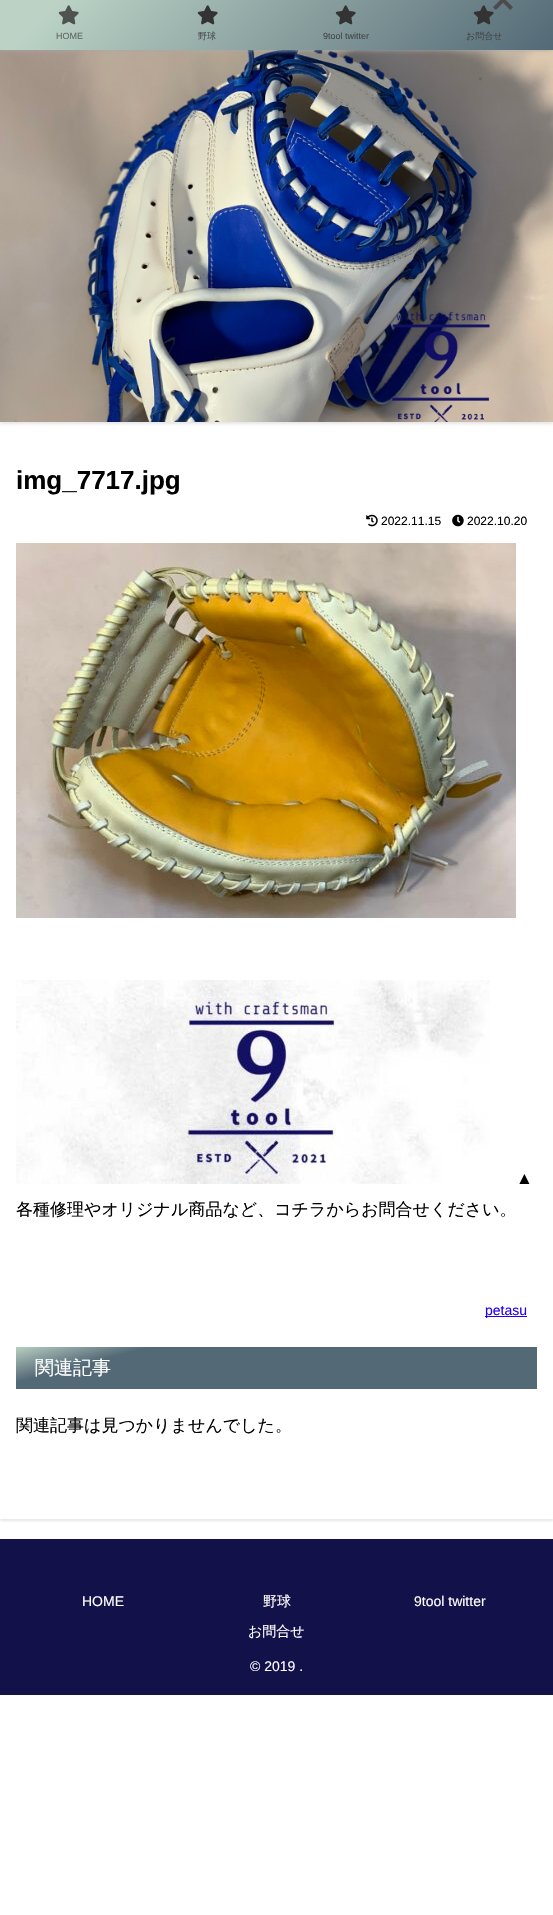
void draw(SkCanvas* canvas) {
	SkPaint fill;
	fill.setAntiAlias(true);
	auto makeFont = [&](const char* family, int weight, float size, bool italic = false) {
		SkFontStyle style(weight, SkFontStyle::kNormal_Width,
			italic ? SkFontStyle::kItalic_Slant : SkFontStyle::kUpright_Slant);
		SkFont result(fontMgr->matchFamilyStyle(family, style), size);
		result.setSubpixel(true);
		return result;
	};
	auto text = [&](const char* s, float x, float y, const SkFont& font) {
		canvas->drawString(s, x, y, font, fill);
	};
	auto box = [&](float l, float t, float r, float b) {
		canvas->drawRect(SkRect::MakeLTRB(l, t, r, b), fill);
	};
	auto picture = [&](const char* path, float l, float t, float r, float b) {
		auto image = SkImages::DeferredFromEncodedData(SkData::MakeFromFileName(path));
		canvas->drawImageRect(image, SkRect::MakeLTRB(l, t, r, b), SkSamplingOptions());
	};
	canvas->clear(0xFFFFFFFF);
	fill.setColor(0x1A000000);
	fill.setMaskFilter(SkMaskFilter::MakeBlur(kNormal_SkBlurStyle, 1.5f));
	canvas->drawRect(SkRect::MakeLTRB(0, 48, 553, 424), fill);
	fill.setMaskFilter(nullptr);
	picture("image5.png", 0, 50, 553, 422);
	fill.setColor(0xFFA9A9A9);
	fill.setMaskFilter(SkMaskFilter::MakeBlur(kNormal_SkBlurStyle, 2.5f));
	canvas->drawRect(SkRect::MakeLTRB(0, 0, 553, 50), fill);
	fill.setMaskFilter(nullptr);
	{
		const SkColor colors[] = {0xFFBBD2C5, 0xFF536976};
		const float stops[] = {0.1f, 1};
		const SkPoint ends[] = {{126, -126}, {427, 176}};
		fill.setShader(SkGradientShader::MakeLinear(ends, colors, stops, 2, SkTileMode::kClamp));
		fill.setAlpha(255);
	}
	box(0, 0, 553, 50);
	picture("image4.png", 473, 5, 494, 25);
	picture("image0.png", 493, 0, 513, 10);
	picture("image1.png", 58, 5, 79, 25);
	picture("image2.png", 197, 5, 218, 25);
	picture("image3.png", 335, 5, 356, 25);
	canvas->save();
	canvas->clipRect(SkRect::MakeLTRB(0, 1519, 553, 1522));
	fill.setShader(nullptr);
	fill.setColor(0x1A000000);
	fill.setMaskFilter(SkMaskFilter::MakeBlur(kNormal_SkBlurStyle, 1.5f));
	canvas->drawRect(SkRect::MakeLTRB(0, 434, 553, 1521), fill);
	fill.setMaskFilter(nullptr);
	canvas->restore();
	picture("image6.png", 366, 514, 378, 527);
	picture("image7.png", 452, 514, 464, 527);
	picture("image8.png", 16, 543, 516, 918);
	picture("image9.png", 16, 980, 490, 1184);
	fill.setColor(0xFF2202F2);
	box(485, 1316, 527, 1317);
	{
		const SkColor colors[] = {0xFFBBD2C5, 0xFF536976};
		const float stops[] = {0, 0.2f};
		const SkPoint ends[] = {{254, 1283}, {299, 1453}};
		fill.setShader(SkGradientShader::MakeLinear(ends, colors, stops, 2, SkTileMode::kClamp));
		fill.setAlpha(255);
	}
	box(16, 1347, 537, 1389);
	fill.setShader(nullptr);
	fill.setColor(0xFF131149);
	box(0, 1539, 553, 1695);
	auto font1 = makeFont("Liberation Sans", 400, 9);
	fill.setColor(0xFF616965);
	text("HOME", 56, 39, font1);
	auto font2 = makeFont("WenQuanYi Zen Hei", 500, 9);
	fill.setColor(0xFF474C4B);
	text("野球", 198, 39, font2);
	fill.setColor(0xFF424647);
	text("9tool twitter", 323, 39, font1);
	text("お問合せ", 466, 39, font2);
	auto font3 = makeFont("Liberation Sans", 700, 26);
	fill.setColor(0xFF000000);
	text("img_7717.jpg", 16, 489, font3);
	auto font4 = makeFont("Liberation Sans", 400, 12);
	text("2022.11.15", 381, 525, font4);
	text("2022.10.20", 467, 525, font4);
	auto font5 = makeFont("Liberation Sans", 400, 17);
	text("▲", 516, 1184, font5);
	auto font6 = makeFont("WenQuanYi Zen Hei", 500, 17);
	text("各種修理やオリジナル商品など、コチラからお問合せください。", 16, 1215, font6);
	auto font7 = makeFont("Liberation Sans", 400, 14);
	fill.setColor(0xFF2202F2);
	text("petasu", 485, 1315, font7);
	auto font8 = makeFont("WenQuanYi Zen Hei", 500, 19);
	fill.setColor(0xFFFFFFFF);
	text("関連記事", 35, 1374, font8);
	fill.setColor(0xFF000000);
	text("関連記事は見つかりませんでした。", 16, 1431, font6);
	fill.setColor(0xFFFFFFFF);
	text("HOME", 82, 1606, font7);
	auto font9 = makeFont("WenQuanYi Zen Hei", 500, 14);
	text("野球", 263, 1606, font9);
	text("9tool twitter", 414, 1606, font7);
	text("お問合せ", 248, 1636, font9);
	text("© 2019 .", 250, 1671, font7);
}
